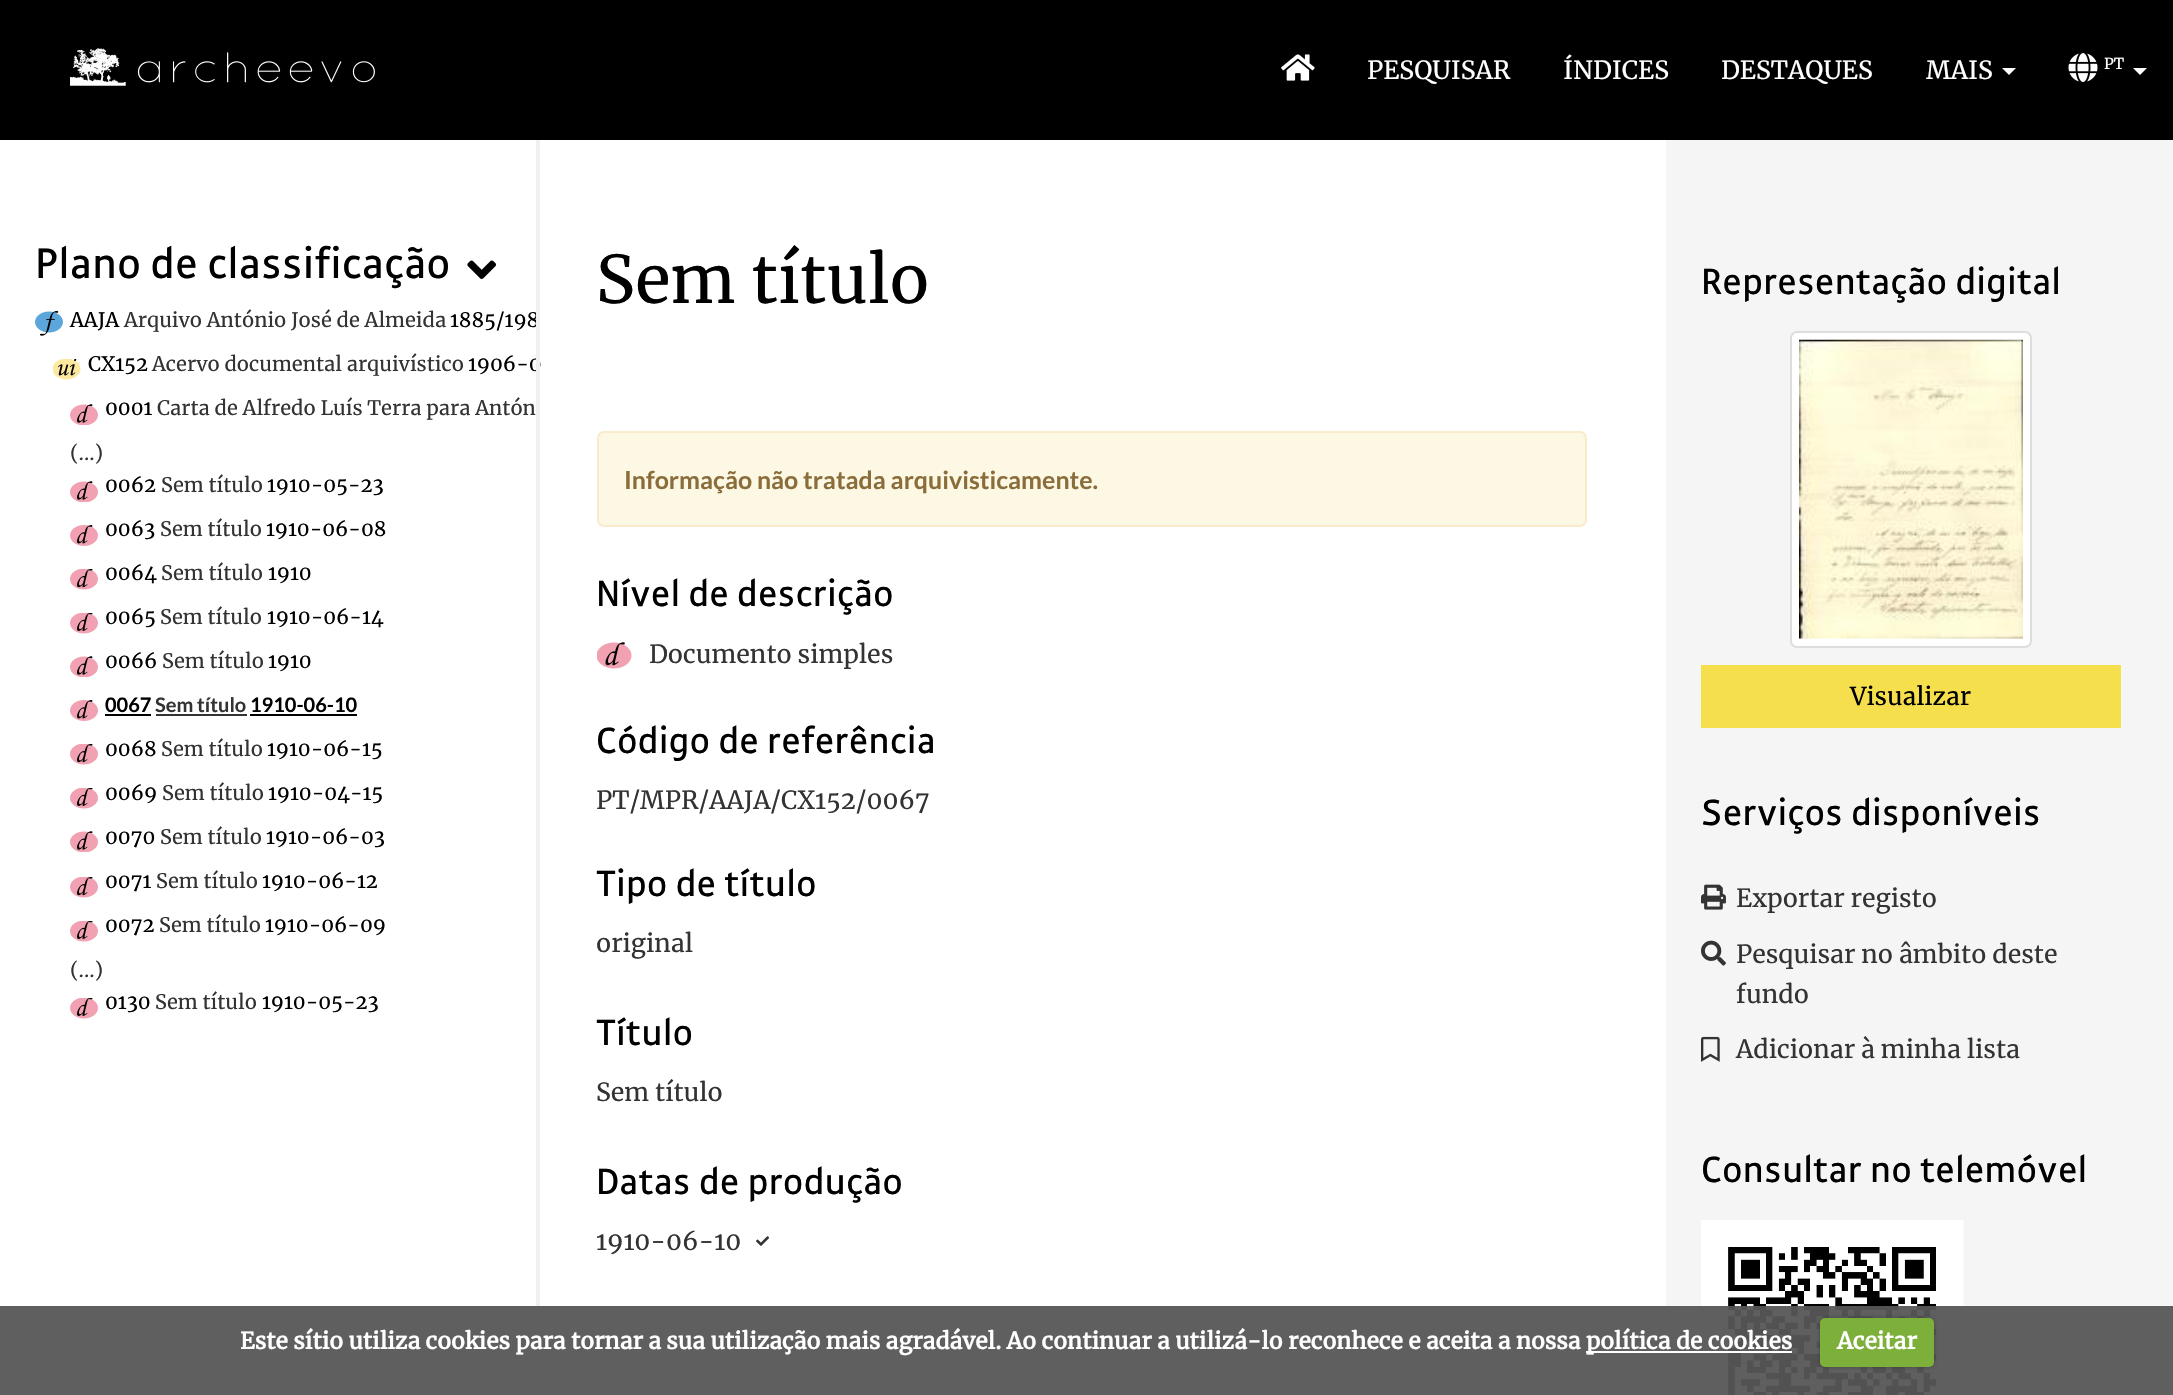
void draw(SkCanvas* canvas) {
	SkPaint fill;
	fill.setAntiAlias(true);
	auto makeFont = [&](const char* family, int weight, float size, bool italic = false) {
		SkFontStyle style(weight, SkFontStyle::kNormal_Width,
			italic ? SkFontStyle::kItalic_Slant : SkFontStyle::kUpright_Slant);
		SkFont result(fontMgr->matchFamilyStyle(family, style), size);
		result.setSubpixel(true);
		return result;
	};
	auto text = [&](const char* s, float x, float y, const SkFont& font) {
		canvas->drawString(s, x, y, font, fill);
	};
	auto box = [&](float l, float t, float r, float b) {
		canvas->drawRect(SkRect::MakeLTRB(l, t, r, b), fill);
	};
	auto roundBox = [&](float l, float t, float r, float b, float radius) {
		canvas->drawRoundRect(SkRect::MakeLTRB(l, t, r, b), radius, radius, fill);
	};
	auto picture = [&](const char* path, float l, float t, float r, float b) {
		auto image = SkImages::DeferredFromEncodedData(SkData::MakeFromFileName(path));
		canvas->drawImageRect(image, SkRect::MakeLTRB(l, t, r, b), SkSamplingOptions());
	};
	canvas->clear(0xFFFFFFFF);
	fill.setColor(0xFF000000);
	box(0, 0, 2173, 140);
	picture("image0.png", 70, 48, 375, 86);
	picture("image1.png", 1281, 54, 1315, 81);
	fill.setColor(0xFFFFFFFF);
	canvas->drawPath(SkPathBuilder().moveTo(2002, 68).lineTo(2016, 68).lineTo(2009, 75).close().detach(), fill);
	picture("image2.png", 2068, 53, 2098, 82);
	canvas->drawPath(SkPathBuilder().moveTo(2133, 68).lineTo(2147, 68).lineTo(2140, 75).close().detach(), fill);
	fill.setColor(0xFFF5F5F5);
	box(1666, 140, 2173, 1395);
	picture("image3.png", 467, 260, 496, 279);
	picture("image4.png", 35, 310, 63, 336);
	picture("image5.png", 53, 359, 81, 380);
	picture("image6.png", 70, 404, 98, 425);
	picture("image6.png", 70, 481, 98, 502);
	picture("image7.png", 70, 525, 98, 546);
	picture("image8.png", 70, 569, 98, 590);
	picture("image9.png", 70, 613, 98, 634);
	picture("image6.png", 70, 656, 98, 677);
	picture("image7.png", 70, 700, 98, 721);
	fill.setColor(0xFF000000);
	box(105, 714, 151, 716);
	fill.setColor(0xFF333333);
	box(156, 714, 247, 716);
	fill.setColor(0xFF000000);
	box(250, 714, 357, 716);
	picture("image8.png", 70, 744, 98, 765);
	picture("image9.png", 70, 788, 98, 809);
	picture("image6.png", 70, 831, 98, 852);
	picture("image8.png", 70, 877, 98, 898);
	picture("image9.png", 70, 921, 98, 942);
	picture("image9.png", 70, 998, 98, 1019);
	fill.setColor(0xFFFCF8E3);
	canvas->drawRoundRect(SkRect::MakeLTRB(598, 432, 1586, 526), 6, 6, fill);
	fill.setStyle(SkPaint::kStroke_Style);
	fill.setStrokeWidth(2);
	fill.setColor(0xFFFAEBCC);
	canvas->drawRoundRect(SkRect::MakeLTRB(598, 432, 1586, 526), 6, 6, fill);
	picture("image10.png", 597, 642, 632, 669);
	picture("image11.png", 756, 1236, 770, 1246);
	fill.setStyle(SkPaint::kFill_Style);
	fill.setColor(0xFFFFFFFF);
	canvas->drawRoundRect(SkRect::MakeLTRB(1791, 332, 2031, 647), 6, 6, fill);
	fill.setStyle(SkPaint::kStroke_Style);
	fill.setColor(0xFFDDDDDD);
	canvas->drawRoundRect(SkRect::MakeLTRB(1791, 332, 2031, 647), 6, 6, fill);
	picture("image12.png", 1799, 339, 2023, 639);
	fill.setStyle(SkPaint::kFill_Style);
	fill.setColor(0xFFF5DF4D);
	box(1701, 665, 2121, 728);
	picture("image13.png", 1701, 884, 1726, 910);
	picture("image14.png", 1701, 940, 1726, 966);
	picture("image15.png", 1701, 1036, 1720, 1062);
	picture("image16.png", 1701, 1220, 1964, 1395);
	auto font1 = makeFont("Merriweather", 400, 24.9f);
	fill.setColor(0xFFFFFFFF);
	text("PESQUISAR", 1367, 79, font1);
	text("ÍNDICES", 1563, 79, font1);
	text("DESTAQUES", 1721, 79, font1);
	text("MAIS", 1926, 79, font1);
	auto font2 = makeFont("Merriweather", 400, 15);
	text("PT", 2104, 69, font2);
	auto font3 = makeFont("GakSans", 400, 46);
	fill.setColor(0xFF000000);
	text("Plano de classificação", 35, 278, font3);
	auto font4 = makeFont("Merriweather", 400, 20);
	text("AAJA", 70, 327, font4);
	fill.setColor(0xFF333333);
	text("Arquivo António José de Almeida", 124, 327, font4);
	fill.setColor(0xFF000000);
	text("1885/198", 450, 327, font4);
	text("CX152", 88, 371, font4);
	fill.setColor(0xFF333333);
	text("Acervo documental arquivístico", 152, 371, font4);
	fill.setColor(0xFF000000);
	text("1906-0", 468, 371, font4);
	fill.setColor(0xFFF0F0F0);
	box(536, 140, 540, 1395);
	fill.setColor(0xFF000000);
	text("0001", 105, 415, font4);
	fill.setColor(0xFF333333);
	text("Carta de Alfredo Luís Terra para Antón", 157, 415, font4);
	text("(...)", 70, 460, font4);
	fill.setColor(0xFF000000);
	text("0062", 105, 492, font4);
	fill.setColor(0xFF333333);
	text("Sem título", 161, 492, font4);
	fill.setColor(0xFF000000);
	text("1910-05-23", 267, 492, font4);
	text("0063", 105, 536, font4);
	fill.setColor(0xFF333333);
	text("Sem título", 160, 536, font4);
	fill.setColor(0xFF000000);
	text("1910-06-08", 266, 536, font4);
	text("0064", 105, 580, font4);
	fill.setColor(0xFF333333);
	text("Sem título", 161, 580, font4);
	fill.setColor(0xFF000000);
	text("1910", 268, 580, font4);
	text("0065", 105, 624, font4);
	fill.setColor(0xFF333333);
	text("Sem título", 160, 624, font4);
	fill.setColor(0xFF000000);
	text("1910-06-14", 267, 624, font4);
	text("0066", 105, 668, font4);
	fill.setColor(0xFF333333);
	text("Sem título", 162, 668, font4);
	fill.setColor(0xFF000000);
	text("1910", 268, 668, font4);
	auto font5 = makeFont("Lato", 700, 20);
	text("0067", 105, 712, font5);
	fill.setColor(0xFF333333);
	text("Sem título", 155, 712, font5);
	fill.setColor(0xFF000000);
	text("1910-06-10", 250, 712, font5);
	text("0068", 105, 756, font4);
	fill.setColor(0xFF333333);
	text("Sem título", 161, 756, font4);
	fill.setColor(0xFF000000);
	text("1910-06-15", 267, 756, font4);
	text("0069", 105, 800, font4);
	fill.setColor(0xFF333333);
	text("Sem título", 162, 800, font4);
	fill.setColor(0xFF000000);
	text("1910-04-15", 268, 800, font4);
	text("0070", 105, 844, font4);
	fill.setColor(0xFF333333);
	text("Sem título", 160, 844, font4);
	fill.setColor(0xFF000000);
	text("1910-06-03", 266, 844, font4);
	text("0071", 105, 888, font4);
	fill.setColor(0xFF333333);
	text("Sem título", 156, 888, font4);
	fill.setColor(0xFF000000);
	text("1910-06-12", 262, 888, font4);
	text("0072", 105, 932, font4);
	fill.setColor(0xFF333333);
	text("Sem título", 159, 932, font4);
	fill.setColor(0xFF000000);
	text("1910-06-09", 265, 932, font4);
	fill.setColor(0xFF333333);
	text("(...)", 70, 977, font4);
	fill.setColor(0xFF000000);
	text("0130", 105, 1009, font4);
	fill.setColor(0xFF333333);
	text("Sem título", 155, 1009, font4);
	fill.setColor(0xFF000000);
	text("1910-05-23", 262, 1009, font4);
	auto font6 = makeFont("Merriweather", 400, 65.5f);
	text("Sem título", 596, 303, font6);
	auto font7 = makeFont("Lato", 700, 24.9f);
	fill.setColor(0xFF8A6D3B);
	text("Informação não tratada arquivisticamente.", 624, 489, font7);
	auto font8 = makeFont("GakSans", 400, 39.4f);
	fill.setColor(0xFF000000);
	text("Nível de descrição", 596, 606, font8);
	fill.setColor(0xFF333333);
	text("Documento simples", 649, 663, font1);
	fill.setColor(0xFF000000);
	text("Código de referência", 596, 753, font8);
	fill.setColor(0xFF333333);
	text("PT/MPR/AAJA/CX152/0067", 596, 809, font1);
	fill.setColor(0xFF000000);
	text("Tipo de título", 596, 896, font8);
	fill.setColor(0xFF333333);
	text("original", 596, 952, font1);
	fill.setColor(0xFF000000);
	text("Título", 596, 1045, font8);
	fill.setColor(0xFF333333);
	text("Sem título", 596, 1101, font1);
	fill.setColor(0xFF000000);
	text("Datas de produção", 596, 1194, font8);
	fill.setColor(0xFF333333);
	text("1910-06-10", 596, 1250, font1);
	fill.setColor(0xFF000000);
	text("Representação digital", 1701, 294, font8);
	auto font9 = makeFont("Merriweather", 400, 24.5f);
	text("Visualizar", 1850, 705, font9);
	text("Serviços disponíveis", 1701, 825, font8);
	fill.setColor(0xFF333333);
	text("Exportar registo", 1736, 907, font1);
	text("Pesquisar no âmbito deste", 1736, 963, font1);
	text("fundo", 1736, 1003, font1);
	text("Adicionar à minha lista", 1736, 1058, font1);
	fill.setColor(0xFF000000);
	text("Consultar no telemóvel", 1701, 1182, font8);
	fill.setColor(0xF2565656);
	box(0, 1306, 2173, 1395);
	auto font10 = makeFont("Merriweather", 700, 22.75f);
	fill.setColor(0xFFFFFFFF);
	text("Este sítio utiliza cookies para tornar a sua utilização mais agradável. Ao continuar a utilizá-lo reconhece e aceita a nossa", 240, 1349, font10);
	box(1586, 1351, 1792, 1353);
	text("política de cookies", 1586, 1349, font10);
	fill.setColor(0x40000000);
	fill.setMaskFilter(SkMaskFilter::MakeBlur(kNormal_SkBlurStyle, 2));
	canvas->drawRoundRect(SkRect::MakeLTRB(1820, 1318, 1934, 1367), 5, 5, fill);
	fill.setMaskFilter(nullptr);
	fill.setColor(0xFF7DAF3B);
	roundBox(1820, 1318, 1934, 1367, 5);
	fill.setColor(0xFFFFFFFF);
	text("Aceitar", 1837, 1349, font10);
}
